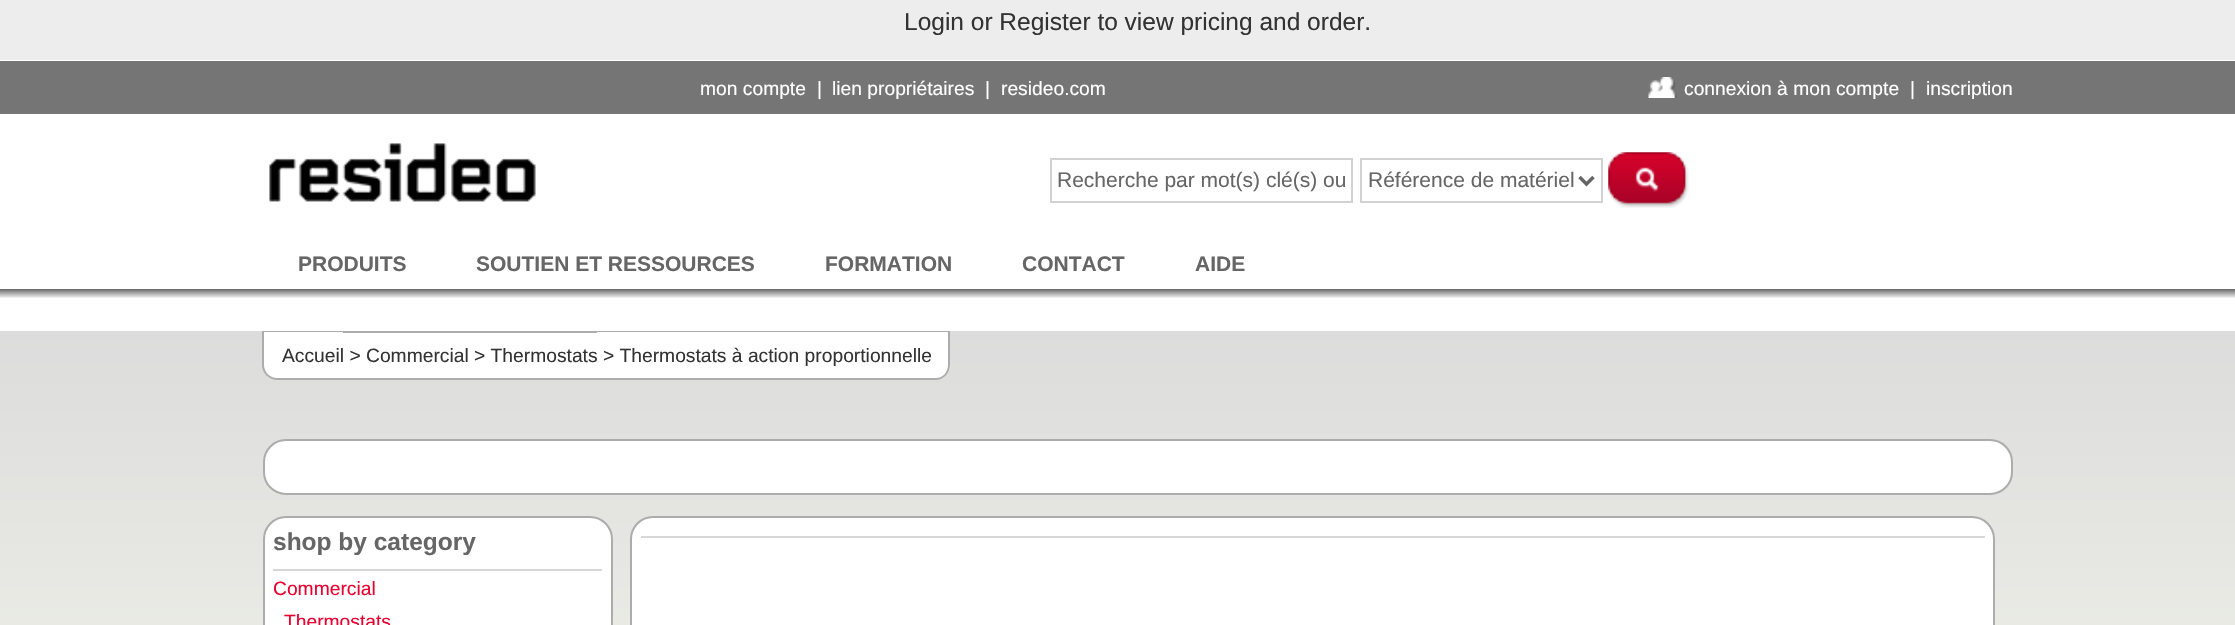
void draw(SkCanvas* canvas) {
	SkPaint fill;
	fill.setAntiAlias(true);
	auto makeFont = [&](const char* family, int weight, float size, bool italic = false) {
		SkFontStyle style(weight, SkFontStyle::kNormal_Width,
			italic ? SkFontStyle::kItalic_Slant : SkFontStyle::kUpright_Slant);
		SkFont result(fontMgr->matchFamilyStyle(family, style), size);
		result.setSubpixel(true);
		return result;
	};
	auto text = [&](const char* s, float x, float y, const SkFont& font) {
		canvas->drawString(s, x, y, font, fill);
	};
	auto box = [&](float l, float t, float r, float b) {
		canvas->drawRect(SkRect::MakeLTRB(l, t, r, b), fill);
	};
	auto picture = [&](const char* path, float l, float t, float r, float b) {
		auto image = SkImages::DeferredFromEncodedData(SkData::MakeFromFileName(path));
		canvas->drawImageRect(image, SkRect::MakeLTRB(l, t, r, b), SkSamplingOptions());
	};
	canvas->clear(0xFFFFFFFF);
	fill.setColor(0xFFEDEDED);
	box(0, 0, 2235, 60);
	fill.setColor(0xFF757575);
	box(0, 61, 2235, 114);
	picture("image0.png", 1648, 77, 1677, 98);
	picture("image1.png", 269, 143, 536, 202);
	fill.setStyle(SkPaint::kStroke_Style);
	fill.setStrokeWidth(2);
	fill.setColor(0xFFD3D2D2);
	canvas->drawRect(SkRect::MakeLTRB(1051, 159, 1352, 202), fill);
	canvas->drawRect(SkRect::MakeLTRB(1361, 159, 1602, 202), fill);
	fill.setStrokeWidth(3.5f);
	fill.setColor(0xFF666666);
	canvas->drawPath(SkPathBuilder().moveTo(1579.5f, 177).lineTo(1586.5f, 184).lineTo(1593.5f, 177).detach(), fill);
	picture("image2.png", 1608, 152, 1689, 208);
	fill.setStyle(SkPaint::kFill_Style);
	{
		const SkColor colors[] = {0xFF666666, 0xFFF5F5F5};
		const float stops[] = {0, 1};
		const SkPoint ends[] = {{0, 289}, {0, 298}};
		fill.setShader(SkGradientShader::MakeLinear(ends, colors, stops, 2, SkTileMode::kClamp));
		fill.setAlpha(255);
	}
	box(0, 289, 2235, 298);
	{
		const SkColor colors[] = {0xFFDCDCDC, 0xFFFCFFF0};
		const float stops[] = {0, 1};
		const SkPoint ends[] = {{0, 331}, {0, 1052}};
		fill.setShader(SkGradientShader::MakeLinear(ends, colors, stops, 2, SkTileMode::kClamp));
		fill.setAlpha(255);
	}
	box(0, 331, 2235, 625);
	fill.setShader(nullptr);
	fill.setColor(0xFFFFFFFF);
	canvas->drawPath(SkPathBuilder().moveTo(263, 331).lineTo(343, 331).lineTo(343, 380).lineTo(277, 380).cubicTo(269.5f, 380, 263, 373.5f, 263, 366).close().detach(), fill);
	fill.setColor(0xFFACACAC);
	canvas->drawPath(SkPathBuilder(SkPathFillType::kEvenOdd).moveTo(262, 331).lineTo(343, 331).lineTo(343, 380).lineTo(277, 380).cubicTo(269, 380, 262, 373, 262, 365).close().moveTo(264, 332).lineTo(343, 332).lineTo(343, 378).lineTo(277, 378).cubicTo(270, 378, 264, 372, 264, 365).close().detach(), fill);
	fill.setColor(0xFFFFFFFF);
	box(343, 333, 597, 378);
	fill.setColor(0xFFACACAC);
	box(343, 331, 597, 333);
	box(343, 378, 597, 380);
	fill.setColor(0xFFFFFFFF);
	canvas->drawPath(SkPathBuilder().moveTo(597, 331).lineTo(950, 331).lineTo(950, 366).cubicTo(950, 373.5f, 943.5f, 380, 936, 380).lineTo(597, 380).close().detach(), fill);
	fill.setColor(0xFFACACAC);
	canvas->drawPath(SkPathBuilder(SkPathFillType::kEvenOdd).moveTo(597, 331).lineTo(950, 331).lineTo(950, 365).cubicTo(950, 373, 944, 380, 936, 380).lineTo(597, 380).close().moveTo(597, 332).lineTo(948, 332).lineTo(948, 365).cubicTo(948, 372, 943, 378, 936, 378).lineTo(597, 378).close().detach(), fill);
	fill.setColor(0xFFFFFFFF);
	canvas->drawRoundRect(SkRect::MakeLTRB(264, 440, 2012, 494), 22, 22, fill);
	fill.setStyle(SkPaint::kStroke_Style);
	fill.setStrokeWidth(2);
	fill.setColor(0xFFACACAC);
	canvas->drawRoundRect(SkRect::MakeLTRB(264, 440, 2012, 494), 22, 22, fill);
	fill.setStyle(SkPaint::kFill_Style);
	fill.setColor(0xFFFFFFFF);
	canvas->drawRoundRect(SkRect::MakeLTRB(264, 517, 612, 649), 22, 22, fill);
	fill.setStyle(SkPaint::kStroke_Style);
	fill.setColor(0xFFACACAC);
	canvas->drawRoundRect(SkRect::MakeLTRB(264, 517, 612, 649), 22, 22, fill);
	fill.setStyle(SkPaint::kFill_Style);
	fill.setColor(0xFFD6D7D6);
	box(273, 569, 602, 571);
	fill.setColor(0xFFFFFFFF);
	canvas->drawRoundRect(SkRect::MakeLTRB(631, 517, 1994, 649), 22, 22, fill);
	fill.setStyle(SkPaint::kStroke_Style);
	fill.setColor(0xFFACACAC);
	canvas->drawRoundRect(SkRect::MakeLTRB(631, 517, 1994, 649), 22, 22, fill);
	fill.setStyle(SkPaint::kFill_Style);
	fill.setColor(0xFFD6D7D6);
	box(641, 536, 1985, 538);
	auto font1 = makeFont("Liberation Sans", 400, 24.5f);
	fill.setColor(0xFF333333);
	text("Login or Register to view pricing and order.", 904, 30, font1);
	auto font2 = makeFont("Liberation Sans", 400, 19.25f);
	fill.setColor(0xFFFFFFFF);
	text("mon compte", 700, 95, font2);
	text("|", 817, 95, font2);
	text("lien propriétaires", 832, 95, font2);
	text("|", 985, 95, font2);
	text("resideo.com", 1001, 95, font2);
	text("connexion à mon compte", 1684, 95, font2);
	text("|", 1910, 95, font2);
	text("inscription", 1926, 95, font2);
	auto font3 = makeFont("Liberation Sans", 400, 21);
	fill.setColor(0xFF666666);
	text("Recherche par mot(s) clé(s) ou", 1057, 187, font3);
	text("Référence de matériel", 1368, 187, font3);
	auto font4 = makeFont("Liberation Sans", 700, 21);
	text("PRODUITS", 298, 271, font4);
	text("SOUTIEN ET RESSOURCES", 476, 271, font4);
	text("FORMATION", 825, 271, font4);
	text("CONTACT", 1022, 271, font4);
	text("AIDE", 1195, 271, font4);
	fill.setColor(0xFF333333);
	text("Accueil > Commercial > Thermostats > Thermostats à action proportionnelle", 282, 362, font2);
	auto font5 = makeFont("Liberation Sans", 700, 24.5f);
	fill.setColor(0xFF666666);
	text("shop by category", 273, 550, font5);
	fill.setColor(0xFFE8002F);
	text("Commercial", 273, 595, font2);
	text("Thermostats", 284, 628, font2);
}
